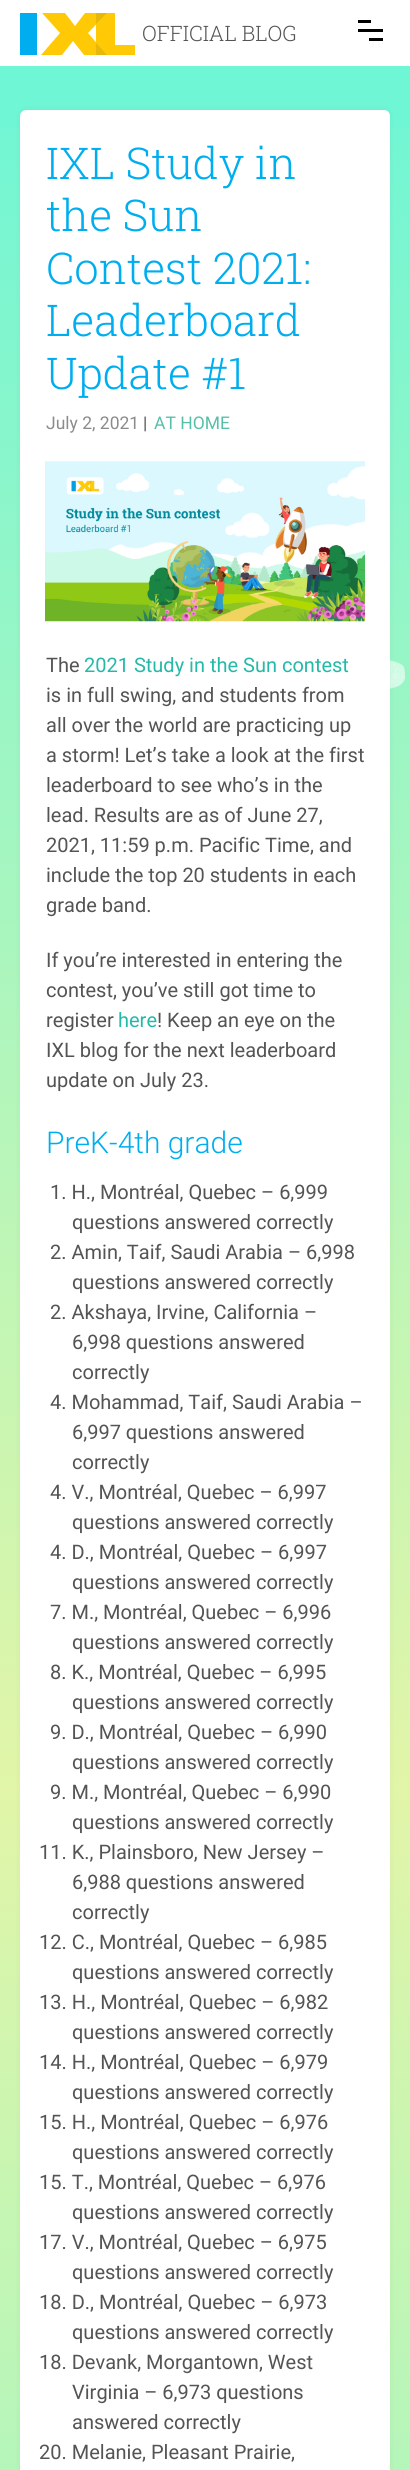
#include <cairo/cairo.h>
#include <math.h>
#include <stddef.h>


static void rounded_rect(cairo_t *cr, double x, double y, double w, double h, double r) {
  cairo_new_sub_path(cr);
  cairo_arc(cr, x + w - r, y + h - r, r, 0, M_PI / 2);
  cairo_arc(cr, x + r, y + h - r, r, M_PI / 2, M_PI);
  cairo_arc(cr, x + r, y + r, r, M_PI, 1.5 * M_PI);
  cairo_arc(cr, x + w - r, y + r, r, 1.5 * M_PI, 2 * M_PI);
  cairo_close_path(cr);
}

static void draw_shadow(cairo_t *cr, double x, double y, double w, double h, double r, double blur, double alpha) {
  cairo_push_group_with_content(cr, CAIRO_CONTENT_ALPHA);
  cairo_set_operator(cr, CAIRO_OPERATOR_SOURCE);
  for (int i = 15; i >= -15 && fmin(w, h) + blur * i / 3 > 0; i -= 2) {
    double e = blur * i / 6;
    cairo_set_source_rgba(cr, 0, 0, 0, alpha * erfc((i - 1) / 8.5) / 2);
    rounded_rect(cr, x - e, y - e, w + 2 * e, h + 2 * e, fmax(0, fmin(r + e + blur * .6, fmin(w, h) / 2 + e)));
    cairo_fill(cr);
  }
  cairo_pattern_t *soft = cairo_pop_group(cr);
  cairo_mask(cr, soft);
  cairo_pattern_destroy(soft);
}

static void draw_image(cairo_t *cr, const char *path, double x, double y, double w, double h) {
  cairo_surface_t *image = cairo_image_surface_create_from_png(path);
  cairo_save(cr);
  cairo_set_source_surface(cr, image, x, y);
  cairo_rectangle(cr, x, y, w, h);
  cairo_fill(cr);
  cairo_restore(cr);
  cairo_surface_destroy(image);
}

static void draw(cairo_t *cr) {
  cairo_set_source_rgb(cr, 111 / 255.0, 246 / 255.0, 213 / 255.0);
  cairo_paint(cr);
  cairo_set_source_rgb(cr, 1, 1, 1);
  cairo_rectangle(cr, 0, 0, 410, 66);
  cairo_fill(cr);
  cairo_set_source_rgb(cr, 1, 202 / 255.0, 5 / 255.0);
  cairo_set_fill_rule(cr, CAIRO_FILL_RULE_EVEN_ODD);
  cairo_new_path(cr);
  cairo_move_to(cr, 96, 55);
  cairo_line_to(cr, 135, 55);
  cairo_line_to(cr, 135, 45);
  cairo_line_to(cr, 115, 45);
  cairo_line_to(cr, 115, 13);
  cairo_line_to(cr, 96, 13);
  cairo_close_path(cr);
  cairo_fill(cr);
  cairo_new_path(cr);
  cairo_move_to(cr, 41, 55);
  cairo_line_to(cr, 62, 55);
  cairo_line_to(cr, 73, 41);
  cairo_line_to(cr, 84, 55);
  cairo_line_to(cr, 107, 55);
  cairo_line_to(cr, 88, 33);
  cairo_line_to(cr, 107, 13);
  cairo_line_to(cr, 85, 13);
  cairo_line_to(cr, 75, 26);
  cairo_line_to(cr, 65, 13);
  cairo_line_to(cr, 42, 13);
  cairo_line_to(cr, 60, 33);
  cairo_close_path(cr);
  cairo_fill(cr);
  cairo_set_source_rgb(cr, 231 / 255.0, 184 / 255.0, 9 / 255.0);
  cairo_new_path(cr);
  cairo_move_to(cr, 96, 55);
  cairo_line_to(cr, 107, 55);
  cairo_line_to(cr, 96, 43);
  cairo_close_path(cr);
  cairo_move_to(cr, 107, 13);
  cairo_line_to(cr, 96, 13);
  cairo_line_to(cr, 96, 24);
  cairo_close_path(cr);
  cairo_fill(cr);
  cairo_set_source_rgb(cr, 0, 174 / 255.0, 239 / 255.0);
  cairo_rectangle(cr, 20, 13, 17, 42);
  cairo_fill(cr);
  cairo_set_source_rgb(cr, 0, 0, 0);
  cairo_rectangle(cr, 358, 20, 13, 3);
  cairo_fill(cr);
  cairo_rectangle(cr, 358, 29, 25, 3);
  cairo_fill(cr);
  cairo_rectangle(cr, 369, 38, 14, 3);
  cairo_fill(cr);
  draw_image(cr, "images/1.png", 0, 128, 410, 2342);
  cairo_set_source_rgb(cr, 0, 0, 0);
  draw_shadow(cr, 20, 110, 370, 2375, 6, 3, 0.05);
  cairo_set_source_rgb(cr, 1, 1, 1);
  rounded_rect(cr, 20, 110, 370, 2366, 6);
  cairo_fill(cr);
  draw_image(cr, "images/2.png", 45, 461, 320, 161);
  cairo_select_font_face(cr, "Roboto Slab Light", CAIRO_FONT_SLANT_NORMAL, CAIRO_FONT_WEIGHT_NORMAL);
  cairo_set_font_size(cr, 21.25);
  cairo_set_source_rgb(cr, 84 / 255.0, 84 / 255.0, 84 / 255.0);
  cairo_move_to(cr, 142, 41);
  cairo_show_text(cr, "OFFICIAL BLOG");
  cairo_set_font_size(cr, 43.75);
  cairo_set_source_rgb(cr, 0, 174 / 255.0, 239 / 255.0);
  cairo_move_to(cr, 46, 179);
  cairo_show_text(cr, "IXL Study in");
  cairo_move_to(cr, 46, 231);
  cairo_show_text(cr, "the Sun");
  cairo_move_to(cr, 46, 284);
  cairo_show_text(cr, "Contest 2021:");
  cairo_move_to(cr, 46, 336);
  cairo_show_text(cr, "Leaderboard");
  cairo_move_to(cr, 46, 389);
  cairo_show_text(cr, "Update #1");
  cairo_select_font_face(cr, "Roboto", CAIRO_FONT_SLANT_NORMAL, CAIRO_FONT_WEIGHT_NORMAL);
  cairo_set_font_size(cr, 17.5);
  cairo_set_source_rgb(cr, 140 / 255.0, 139 / 255.0, 139 / 255.0);
  cairo_move_to(cr, 46, 429);
  cairo_show_text(cr, "July 2, 2021");
  cairo_set_source_rgb(cr, 84 / 255.0, 84 / 255.0, 84 / 255.0);
  cairo_move_to(cr, 143, 429);
  cairo_show_text(cr, "|");
  cairo_set_source_rgb(cr, 86 / 255.0, 191 / 255.0, 169 / 255.0);
  cairo_move_to(cr, 154, 429);
  cairo_show_text(cr, "AT HOME");
  cairo_set_font_size(cr, 20);
  cairo_set_source_rgb(cr, 84 / 255.0, 84 / 255.0, 84 / 255.0);
  cairo_move_to(cr, 46, 672);
  cairo_show_text(cr, "The");
  cairo_set_source_rgb(cr, 37 / 255.0, 185 / 255.0, 168 / 255.0);
  cairo_move_to(cr, 84, 672);
  cairo_show_text(cr, "2021 Study in the Sun contest");
  cairo_set_source_rgb(cr, 84 / 255.0, 84 / 255.0, 84 / 255.0);
  cairo_move_to(cr, 46, 702);
  cairo_show_text(cr, "is in full swing, and students from");
  cairo_move_to(cr, 46, 732);
  cairo_show_text(cr, "all over the world are practicing up");
  cairo_move_to(cr, 46, 762);
  cairo_show_text(cr, "a storm! Let’s take a look at the first");
  cairo_move_to(cr, 46, 792);
  cairo_show_text(cr, "leaderboard to see who’s in the");
  cairo_move_to(cr, 46, 822);
  cairo_show_text(cr, "lead. Results are as of June 27,");
  cairo_move_to(cr, 46, 852);
  cairo_show_text(cr, "2021, 11:59 p.m. Pacific Time, and");
  cairo_move_to(cr, 46, 882);
  cairo_show_text(cr, "include the top 20 students in each");
  cairo_move_to(cr, 46, 912);
  cairo_show_text(cr, "grade band.");
  cairo_move_to(cr, 46, 967);
  cairo_show_text(cr, "If you’re interested in entering the");
  cairo_move_to(cr, 46, 997);
  cairo_show_text(cr, "contest, you’ve still got time to");
  cairo_move_to(cr, 46, 1027);
  cairo_show_text(cr, "register");
  cairo_set_source_rgb(cr, 37 / 255.0, 185 / 255.0, 168 / 255.0);
  cairo_move_to(cr, 118, 1027);
  cairo_show_text(cr, "here");
  cairo_set_source_rgb(cr, 84 / 255.0, 84 / 255.0, 84 / 255.0);
  cairo_move_to(cr, 157, 1027);
  cairo_show_text(cr, "! Keep an eye on the");
  cairo_move_to(cr, 46, 1057);
  cairo_show_text(cr, "IXL blog for the next leaderboard");
  cairo_move_to(cr, 46, 1087);
  cairo_show_text(cr, "update on July 23.");
  cairo_select_font_face(cr, "Roboto Light", CAIRO_FONT_SLANT_NORMAL, CAIRO_FONT_WEIGHT_NORMAL);
  cairo_set_font_size(cr, 30);
  cairo_set_source_rgb(cr, 0, 174 / 255.0, 239 / 255.0);
  cairo_move_to(cr, 46, 1153);
  cairo_show_text(cr, "PreK-4th grade");
  cairo_select_font_face(cr, "Roboto", CAIRO_FONT_SLANT_NORMAL, CAIRO_FONT_WEIGHT_NORMAL);
  cairo_set_font_size(cr, 20);
  cairo_set_source_rgb(cr, 84 / 255.0, 84 / 255.0, 84 / 255.0);
  cairo_move_to(cr, 50, 1199);
  cairo_show_text(cr, "1. H., Montréal, Quebec – 6,999");
  cairo_move_to(cr, 72, 1229);
  cairo_show_text(cr, "questions answered correctly");
  cairo_move_to(cr, 50, 1259);
  cairo_show_text(cr, "2. Amin, Taif, Saudi Arabia – 6,998");
  cairo_move_to(cr, 72, 1289);
  cairo_show_text(cr, "questions answered correctly");
  cairo_move_to(cr, 50, 1319);
  cairo_show_text(cr, "2. Akshaya, Irvine, California –");
  cairo_move_to(cr, 72, 1349);
  cairo_show_text(cr, "6,998 questions answered");
  cairo_move_to(cr, 72, 1379);
  cairo_show_text(cr, "correctly");
  cairo_move_to(cr, 50, 1409);
  cairo_show_text(cr, "4. Mohammad, Taif, Saudi Arabia –");
  cairo_move_to(cr, 72, 1439);
  cairo_show_text(cr, "6,997 questions answered");
  cairo_move_to(cr, 72, 1469);
  cairo_show_text(cr, "correctly");
  cairo_move_to(cr, 50, 1499);
  cairo_show_text(cr, "4. V., Montréal, Quebec – 6,997");
  cairo_move_to(cr, 72, 1529);
  cairo_show_text(cr, "questions answered correctly");
  cairo_move_to(cr, 50, 1559);
  cairo_show_text(cr, "4. D., Montréal, Quebec – 6,997");
  cairo_move_to(cr, 72, 1589);
  cairo_show_text(cr, "questions answered correctly");
  cairo_move_to(cr, 50, 1619);
  cairo_show_text(cr, "7. M., Montréal, Quebec – 6,996");
  cairo_move_to(cr, 72, 1649);
  cairo_show_text(cr, "questions answered correctly");
  cairo_move_to(cr, 50, 1679);
  cairo_show_text(cr, "8. K., Montréal, Quebec – 6,995");
  cairo_move_to(cr, 72, 1709);
  cairo_show_text(cr, "questions answered correctly");
  cairo_move_to(cr, 50, 1739);
  cairo_show_text(cr, "9. D., Montréal, Quebec – 6,990");
  cairo_move_to(cr, 72, 1769);
  cairo_show_text(cr, "questions answered correctly");
  cairo_move_to(cr, 50, 1799);
  cairo_show_text(cr, "9. M., Montréal, Quebec – 6,990");
  cairo_move_to(cr, 72, 1829);
  cairo_show_text(cr, "questions answered correctly");
  cairo_move_to(cr, 39, 1859);
  cairo_show_text(cr, "11. K., Plainsboro, New Jersey –");
  cairo_move_to(cr, 72, 1889);
  cairo_show_text(cr, "6,988 questions answered");
  cairo_move_to(cr, 72, 1919);
  cairo_show_text(cr, "correctly");
  cairo_move_to(cr, 39, 1949);
  cairo_show_text(cr, "12. C., Montréal, Quebec – 6,985");
  cairo_move_to(cr, 72, 1979);
  cairo_show_text(cr, "questions answered correctly");
  cairo_move_to(cr, 39, 2009);
  cairo_show_text(cr, "13. H., Montréal, Quebec – 6,982");
  cairo_move_to(cr, 72, 2039);
  cairo_show_text(cr, "questions answered correctly");
  cairo_move_to(cr, 39, 2069);
  cairo_show_text(cr, "14. H., Montréal, Quebec – 6,979");
  cairo_move_to(cr, 72, 2099);
  cairo_show_text(cr, "questions answered correctly");
  cairo_move_to(cr, 39, 2129);
  cairo_show_text(cr, "15. H., Montréal, Quebec – 6,976");
  cairo_move_to(cr, 72, 2159);
  cairo_show_text(cr, "questions answered correctly");
  cairo_move_to(cr, 39, 2189);
  cairo_show_text(cr, "15. T., Montréal, Quebec – 6,976");
  cairo_move_to(cr, 72, 2219);
  cairo_show_text(cr, "questions answered correctly");
  cairo_move_to(cr, 39, 2249);
  cairo_show_text(cr, "17. V., Montréal, Quebec – 6,975");
  cairo_move_to(cr, 72, 2279);
  cairo_show_text(cr, "questions answered correctly");
  cairo_move_to(cr, 39, 2309);
  cairo_show_text(cr, "18. D., Montréal, Quebec – 6,973");
  cairo_move_to(cr, 72, 2339);
  cairo_show_text(cr, "questions answered correctly");
  cairo_move_to(cr, 39, 2369);
  cairo_show_text(cr, "18. Devank, Morgantown, West");
  cairo_move_to(cr, 72, 2399);
  cairo_show_text(cr, "Virginia – 6,973 questions");
  cairo_move_to(cr, 72, 2429);
  cairo_show_text(cr, "answered correctly");
  cairo_move_to(cr, 39, 2459);
  cairo_show_text(cr, "20. Melanie, Pleasant Prairie,");
}

int main(void) {
  cairo_surface_t *surface = cairo_image_surface_create(CAIRO_FORMAT_RGB24, 410, 2470);
  cairo_t *cr = cairo_create(surface);
  cairo_font_options_t *options = cairo_font_options_create();
  cairo_font_options_set_hint_metrics(options, CAIRO_HINT_METRICS_OFF);
  cairo_font_options_set_hint_style(options, CAIRO_HINT_STYLE_NONE);
  cairo_set_font_options(cr, options);
  cairo_set_miter_limit(cr, 4);
  draw(cr);
  cairo_surface_write_to_png(surface, "out.png");
  cairo_font_options_destroy(options);
  cairo_destroy(cr);
  cairo_surface_destroy(surface);
  return 0;
}
